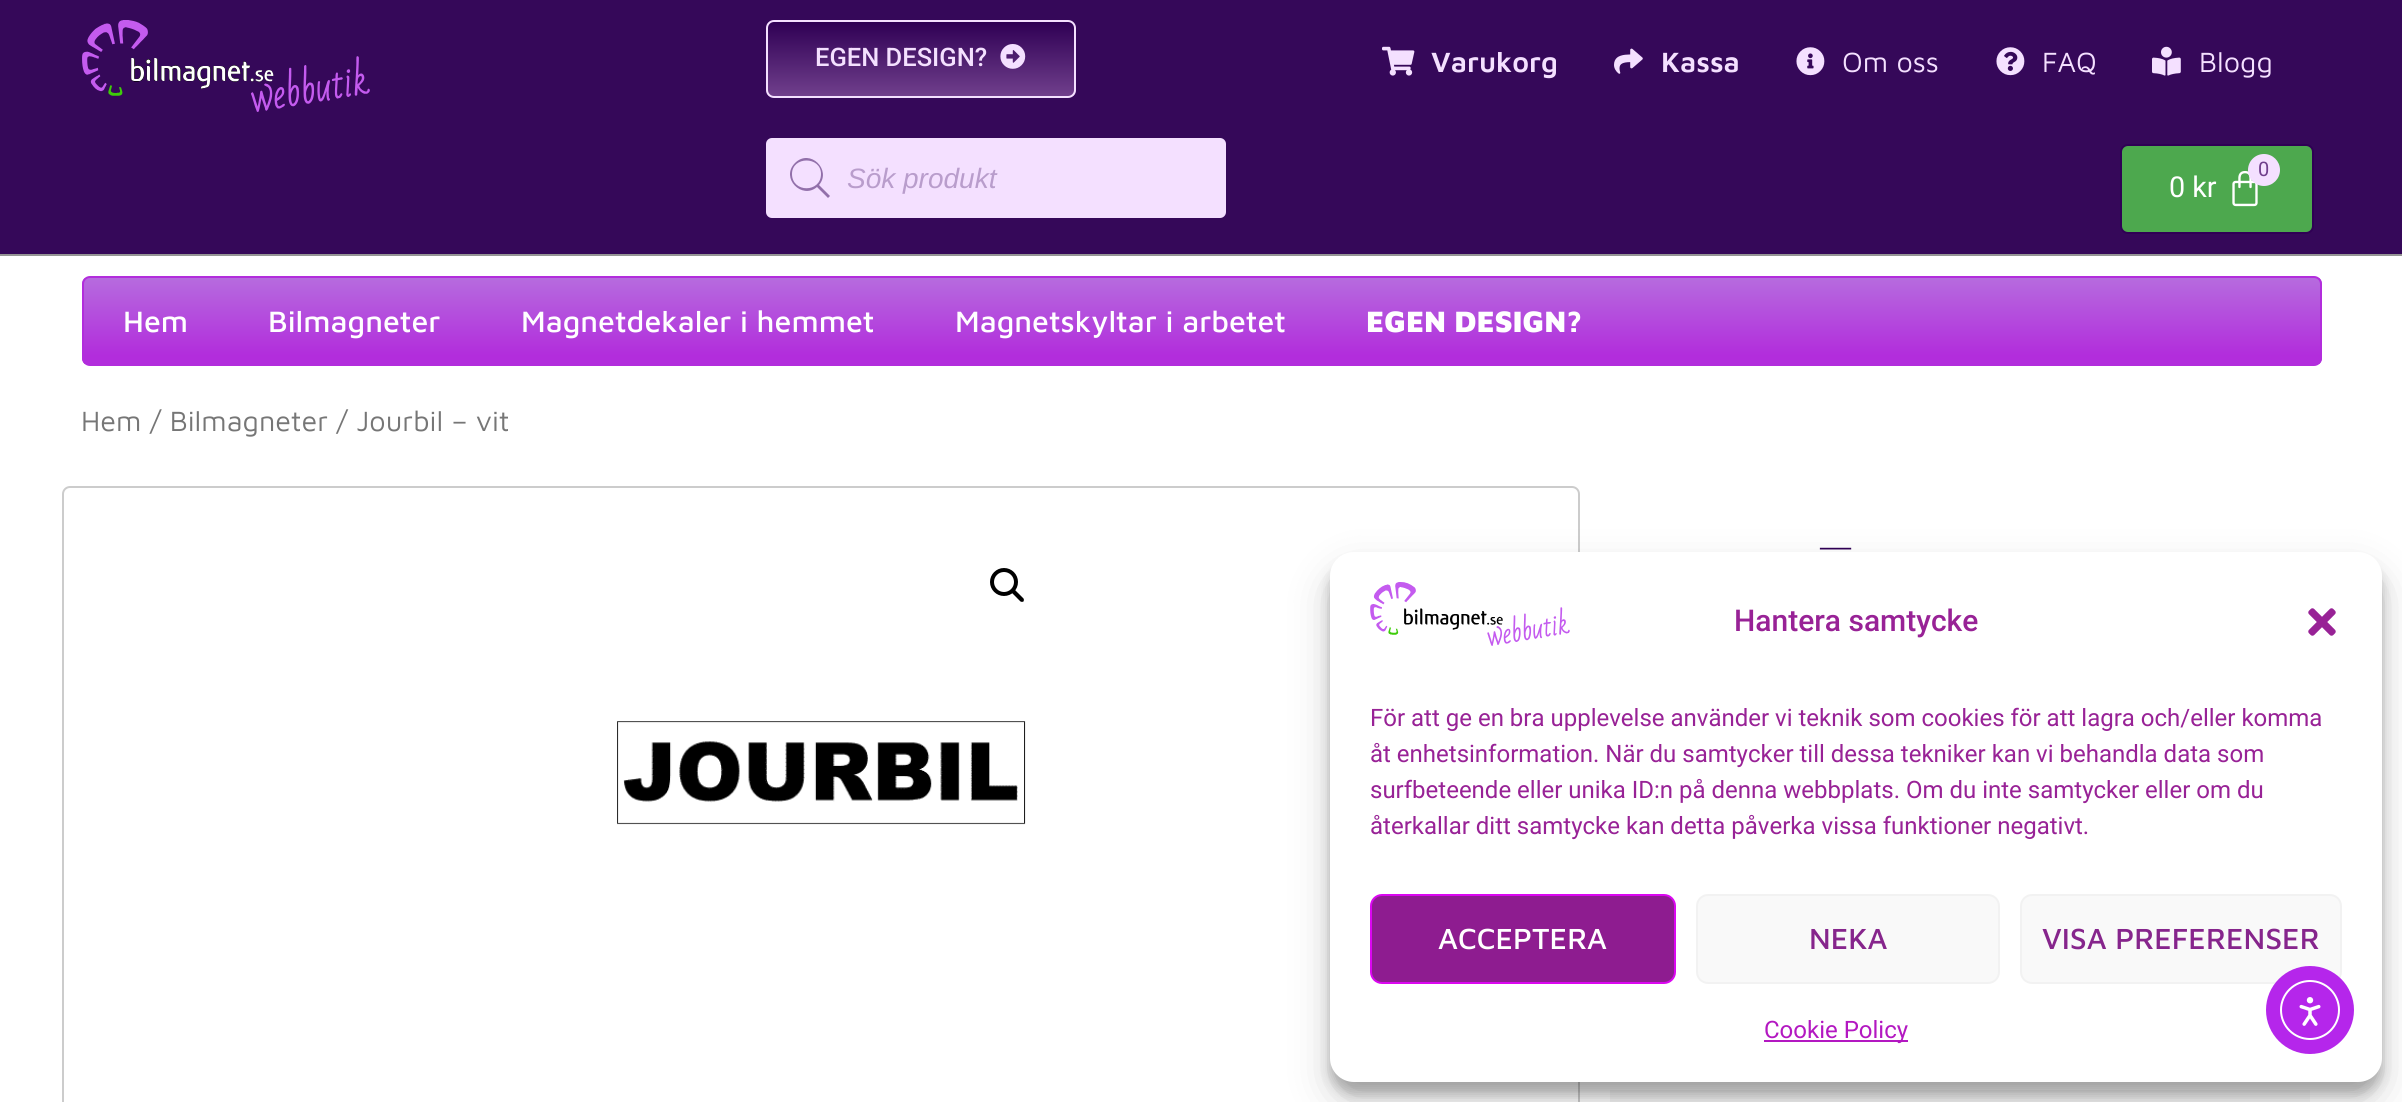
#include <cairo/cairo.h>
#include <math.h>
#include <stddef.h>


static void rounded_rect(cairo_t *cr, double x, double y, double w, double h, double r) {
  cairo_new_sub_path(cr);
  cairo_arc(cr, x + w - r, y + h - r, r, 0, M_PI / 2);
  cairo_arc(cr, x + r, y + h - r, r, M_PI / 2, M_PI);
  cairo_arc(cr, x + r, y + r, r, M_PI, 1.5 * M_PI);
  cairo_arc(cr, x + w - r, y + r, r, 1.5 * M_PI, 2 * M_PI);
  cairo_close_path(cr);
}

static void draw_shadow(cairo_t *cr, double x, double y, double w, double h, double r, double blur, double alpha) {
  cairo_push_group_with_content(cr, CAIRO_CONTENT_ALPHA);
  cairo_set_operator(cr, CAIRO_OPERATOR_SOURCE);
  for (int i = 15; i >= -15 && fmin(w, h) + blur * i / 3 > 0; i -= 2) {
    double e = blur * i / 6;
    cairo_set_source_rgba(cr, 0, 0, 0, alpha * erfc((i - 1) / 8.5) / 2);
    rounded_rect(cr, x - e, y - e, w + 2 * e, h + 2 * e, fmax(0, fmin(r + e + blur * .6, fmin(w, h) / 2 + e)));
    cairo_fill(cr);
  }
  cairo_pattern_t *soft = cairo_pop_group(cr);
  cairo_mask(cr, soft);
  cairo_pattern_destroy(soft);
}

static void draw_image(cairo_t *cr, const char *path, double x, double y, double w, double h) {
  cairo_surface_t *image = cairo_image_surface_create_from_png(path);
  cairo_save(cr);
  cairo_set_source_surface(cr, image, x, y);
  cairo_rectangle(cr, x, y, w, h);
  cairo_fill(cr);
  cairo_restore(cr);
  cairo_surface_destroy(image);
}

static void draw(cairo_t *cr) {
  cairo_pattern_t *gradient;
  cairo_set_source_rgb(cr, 1, 1, 1);
  cairo_paint(cr);
  cairo_set_source_rgb(cr, 53 / 255.0, 8 / 255.0, 89 / 255.0);
  cairo_rectangle(cr, 0, 0, 2402, 254);
  cairo_fill(cr);
  cairo_set_source_rgb(cr, 149 / 255.0, 149 / 255.0, 149 / 255.0);
  cairo_rectangle(cr, 0, 254, 2402, 2);
  cairo_fill(cr);
  draw_image(cr, "images/1.png", 82, 20, 288, 92);
  cairo_save(cr);
  rounded_rect(cr, 766, 20, 310, 78, 8);
  cairo_clip(cr);
  gradient = cairo_pattern_create_linear(921, 22, 921, 96);
  cairo_pattern_add_color_stop_rgba(gradient, 0, 47 / 255.0, 0, 84 / 255.0, 1);
  cairo_pattern_add_color_stop_rgba(gradient, 1, 112 / 255.0, 63 / 255.0, 140 / 255.0, 1);
  cairo_set_source(cr, gradient);
  cairo_pattern_destroy(gradient);
  cairo_rectangle(cr, 766, 22, 310, 74);
  cairo_fill(cr);
  cairo_restore(cr);
  rounded_rect(cr, 767, 21, 308, 76, 7);
  cairo_set_source_rgb(cr, 244 / 255.0, 224 / 255.0, 1);
  cairo_stroke(cr);
  draw_image(cr, "images/2.png", 1000, 44, 26, 25);
  rounded_rect(cr, 767, 139, 458, 78, 5);
  cairo_fill_preserve(cr);
  cairo_stroke(cr);
  cairo_set_source_rgb(cr, 146 / 255.0, 112 / 255.0, 170 / 255.0);
  cairo_new_path(cr);
  cairo_move_to(cr, 830, 196);
  cairo_line_to(cr, 819, 185);
  cairo_curve_to(cr, 832, 170, 810, 148, 795, 163);
  cairo_curve_to(cr, 780, 178, 802, 200, 817, 187);
  cairo_line_to(cr, 828, 198);
  cairo_close_path(cr);
  cairo_move_to(cr, 792, 174);
  cairo_curve_to(cr, 792, 156, 821, 156, 821, 174);
  cairo_curve_to(cr, 821, 193, 792, 193, 792, 174);
  cairo_close_path(cr);
  cairo_fill(cr);
  draw_image(cr, "images/3.png", 1382, 46, 33, 30);
  draw_image(cr, "images/4.png", 1614, 48, 29, 26);
  draw_image(cr, "images/5.png", 1796, 47, 29, 29);
  draw_image(cr, "images/6.png", 1996, 47, 29, 29);
  draw_image(cr, "images/7.png", 2152, 46, 29, 30);
  cairo_set_source_rgb(cr, 77 / 255.0, 168 / 255.0, 78 / 255.0);
  rounded_rect(cr, 2121, 145, 192, 88, 7);
  cairo_fill_preserve(cr);
  cairo_set_source_rgb(cr, 47 / 255.0, 0, 84 / 255.0);
  cairo_stroke(cr);
  draw_image(cr, "images/8.png", 2232, 171, 26, 36);
  cairo_set_source_rgb(cr, 244 / 255.0, 224 / 255.0, 1);
  cairo_arc(cr, 2264, 170, 16, 0, 2 * M_PI);
  cairo_fill(cr);
  cairo_save(cr);
  rounded_rect(cr, 82, 276, 2240, 90, 8);
  cairo_clip(cr);
  gradient = cairo_pattern_create_linear(1202, 278, 1202, 364);
  cairo_pattern_add_color_stop_rgba(gradient, 0, 182 / 255.0, 107 / 255.0, 222 / 255.0, 1);
  cairo_pattern_add_color_stop_rgba(gradient, 0.9, 178 / 255.0, 45 / 255.0, 220 / 255.0, 1);
  cairo_set_source(cr, gradient);
  cairo_pattern_destroy(gradient);
  cairo_rectangle(cr, 82, 278, 2240, 86);
  cairo_fill(cr);
  cairo_restore(cr);
  rounded_rect(cr, 83, 277, 2238, 88, 7);
  cairo_set_source_rgb(cr, 178 / 255.0, 45 / 255.0, 220 / 255.0);
  cairo_stroke(cr);
  rounded_rect(cr, 63, 487, 1516, 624, 7);
  cairo_set_source_rgb(cr, 204 / 255.0, 204 / 255.0, 204 / 255.0);
  cairo_stroke(cr);
  cairo_arc(cr, 1004, 582, 12, 0, 2 * M_PI);
  cairo_set_source_rgb(cr, 0, 0, 0);
  cairo_set_line_width(cr, 4);
  cairo_stroke(cr);
  cairo_new_path(cr);
  cairo_move_to(cr, 1012, 590);
  cairo_curve_to(cr, 1013, 589, 1014, 589, 1015, 590);
  cairo_line_to(cr, 1023.5, 598.5);
  cairo_curve_to(cr, 1024, 599, 1024, 600.5, 1023.5, 601.5);
  cairo_curve_to(cr, 1022.5, 602, 1021.5, 602, 1020.5, 601.5);
  cairo_line_to(cr, 1012, 593);
  cairo_curve_to(cr, 1011.5, 592, 1011.5, 590.5, 1012, 590);
  cairo_close_path(cr);
  cairo_fill(cr);
  draw_image(cr, "images/9.png", 617, 721, 409, 104);
  cairo_set_source_rgb(cr, 246 / 255.0, 246 / 255.0, 246 / 255.0);
  cairo_rectangle(cr, 1610, 1090, 700, 12);
  cairo_fill(cr);
  cairo_set_source_rgb(cr, 0, 0, 0);
  draw_shadow(cr, 1330, 564, 1052, 530, 24, 6, 0.23);
  draw_shadow(cr, 1330, 572, 1052, 530, 24, 20, 0.19);
  cairo_set_source_rgb(cr, 1, 1, 1);
  rounded_rect(cr, 1330, 552, 1052, 530, 24);
  cairo_fill(cr);
  draw_image(cr, "images/10.png", 1370, 582, 200, 64);
  draw_image(cr, "images/11.png", 2308, 608, 28, 28);
  cairo_set_source_rgb(cr, 142 / 255.0, 28 / 255.0, 144 / 255.0);
  rounded_rect(cr, 1371, 895, 304, 88, 11);
  cairo_fill_preserve(cr);
  cairo_set_source_rgb(cr, 219 / 255.0, 6 / 255.0, 241 / 255.0);
  cairo_set_line_width(cr, 2);
  cairo_stroke(cr);
  cairo_set_source_rgb(cr, 249 / 255.0, 249 / 255.0, 249 / 255.0);
  rounded_rect(cr, 1697, 895, 302, 88, 11);
  cairo_fill_preserve(cr);
  cairo_set_source_rgb(cr, 242 / 255.0, 242 / 255.0, 242 / 255.0);
  cairo_stroke(cr);
  cairo_set_source_rgb(cr, 249 / 255.0, 249 / 255.0, 249 / 255.0);
  rounded_rect(cr, 2021, 895, 320, 88, 11);
  cairo_fill_preserve(cr);
  cairo_set_source_rgb(cr, 242 / 255.0, 242 / 255.0, 242 / 255.0);
  cairo_stroke(cr);
  cairo_set_source_rgb(cr, 179 / 255.0, 24 / 255.0, 193 / 255.0);
  cairo_rectangle(cr, 1764, 1040, 144, 2);
  cairo_fill(cr);
  cairo_set_source_rgb(cr, 181 / 255.0, 38 / 255.0, 235 / 255.0);
  cairo_arc(cr, 2310, 1010, 44, 0, 2 * M_PI);
  cairo_fill(cr);
  cairo_arc(cr, 2310, 1010, 29, 0, 2 * M_PI);
  cairo_set_source_rgb(cr, 1, 1, 1);
  cairo_stroke(cr);
  draw_image(cr, "images/12.png", 2299, 997, 22, 29);
  cairo_select_font_face(cr, "Roboto Medium", CAIRO_FONT_SLANT_NORMAL, CAIRO_FONT_WEIGHT_NORMAL);
  cairo_set_font_size(cr, 25.5);
  cairo_set_source_rgb(cr, 244 / 255.0, 224 / 255.0, 1);
  cairo_move_to(cr, 815, 66);
  cairo_show_text(cr, "EGEN DESIGN?");
  cairo_select_font_face(cr, "Liberation Sans", CAIRO_FONT_SLANT_ITALIC, CAIRO_FONT_WEIGHT_NORMAL);
  cairo_set_font_size(cr, 28);
  cairo_set_source_rgb(cr, 185 / 255.0, 157 / 255.0, 204 / 255.0);
  cairo_move_to(cr, 847, 188);
  cairo_show_text(cr, "Sök produkt");
  cairo_select_font_face(cr, "Maven Pro SemiBold", CAIRO_FONT_SLANT_NORMAL, CAIRO_FONT_WEIGHT_NORMAL);
  cairo_set_font_size(cr, 28.75);
  cairo_set_source_rgb(cr, 244 / 255.0, 224 / 255.0, 1);
  cairo_move_to(cr, 1431, 72);
  cairo_show_text(cr, "Varukorg");
  cairo_move_to(cr, 1661, 72);
  cairo_show_text(cr, "Kassa");
  cairo_select_font_face(cr, "Maven Pro", CAIRO_FONT_SLANT_NORMAL, CAIRO_FONT_WEIGHT_NORMAL);
  cairo_move_to(cr, 1842, 72);
  cairo_show_text(cr, "Om oss");
  cairo_move_to(cr, 2042, 72);
  cairo_show_text(cr, "FAQ");
  cairo_move_to(cr, 2199, 72);
  cairo_show_text(cr, "Blogg");
  cairo_select_font_face(cr, "Roboto", CAIRO_FONT_SLANT_NORMAL, CAIRO_FONT_WEIGHT_NORMAL);
  cairo_set_font_size(cr, 20);
  cairo_set_source_rgb(cr, 112 / 255.0, 63 / 255.0, 140 / 255.0);
  cairo_move_to(cr, 2258, 176);
  cairo_show_text(cr, "0");
  cairo_set_font_size(cr, 28.75);
  cairo_set_source_rgb(cr, 1, 1, 1);
  cairo_move_to(cr, 2169, 197);
  cairo_show_text(cr, "0 kr");
  cairo_select_font_face(cr, "Maven Pro Medium", CAIRO_FONT_SLANT_NORMAL, CAIRO_FONT_WEIGHT_NORMAL);
  cairo_set_font_size(cr, 30.4);
  cairo_move_to(cr, 123, 332);
  cairo_show_text(cr, "Hem");
  cairo_move_to(cr, 268, 332);
  cairo_show_text(cr, "Bilmagneter");
  cairo_move_to(cr, 521, 332);
  cairo_show_text(cr, "Magnetdekaler i hemmet");
  cairo_move_to(cr, 955, 332);
  cairo_show_text(cr, "Magnetskyltar i arbetet");
  cairo_select_font_face(cr, "Maven Pro Black", CAIRO_FONT_SLANT_NORMAL, CAIRO_FONT_WEIGHT_NORMAL);
  cairo_move_to(cr, 1366, 332);
  cairo_show_text(cr, "EGEN DESIGN?");
  cairo_select_font_face(cr, "Maven Pro", CAIRO_FONT_SLANT_NORMAL, CAIRO_FONT_WEIGHT_NORMAL);
  cairo_set_font_size(cr, 28.75);
  cairo_set_source_rgb(cr, 118 / 255.0, 118 / 255.0, 118 / 255.0);
  cairo_move_to(cr, 81, 431);
  cairo_show_text(cr, "Hem / Bilmagneter / Jourbil – vit");
  cairo_select_font_face(cr, "Roboto Thin", CAIRO_FONT_SLANT_NORMAL, CAIRO_FONT_WEIGHT_NORMAL);
  cairo_set_font_size(cr, 64);
  cairo_set_source_rgb(cr, 47 / 255.0, 0, 84 / 255.0);
  cairo_move_to(cr, 1815, 572);
  cairo_show_text(cr, "–");
  cairo_select_font_face(cr, "Roboto Medium", CAIRO_FONT_SLANT_NORMAL, CAIRO_FONT_WEIGHT_NORMAL);
  cairo_set_font_size(cr, 30);
  cairo_set_source_rgb(cr, 152 / 255.0, 34 / 255.0, 150 / 255.0);
  cairo_move_to(cr, 1734, 631);
  cairo_show_text(cr, "Hantera samtycke");
  cairo_select_font_face(cr, "Roboto", CAIRO_FONT_SLANT_NORMAL, CAIRO_FONT_WEIGHT_NORMAL);
  cairo_set_font_size(cr, 24);
  cairo_move_to(cr, 1370, 726);
  cairo_show_text(cr, "För att ge en bra upplevelse använder vi teknik som cookies för att lagra och/eller komma");
  cairo_move_to(cr, 1370, 762);
  cairo_show_text(cr, "åt enhetsinformation. När du samtycker till dessa tekniker kan vi behandla data som");
  cairo_move_to(cr, 1370, 798);
  cairo_show_text(cr, "surfbeteende eller unika ID:n på denna webbplats. Om du inte samtycker eller om du");
  cairo_move_to(cr, 1370, 834);
  cairo_show_text(cr, "återkallar ditt samtycke kan detta påverka vissa funktioner negativt.");
  cairo_select_font_face(cr, "Maven Pro Medium", CAIRO_FONT_SLANT_NORMAL, CAIRO_FONT_WEIGHT_NORMAL);
  cairo_set_font_size(cr, 30);
  cairo_set_source_rgb(cr, 1, 1, 1);
  cairo_move_to(cr, 1438, 949);
  cairo_show_text(cr, "ACCEPTERA");
  cairo_set_source_rgb(cr, 134 / 255.0, 37 / 255.0, 140 / 255.0);
  cairo_move_to(cr, 1809, 949);
  cairo_show_text(cr, "NEKA");
  cairo_move_to(cr, 2042, 949);
  cairo_show_text(cr, "VISA PREFERENSER");
  cairo_select_font_face(cr, "Roboto", CAIRO_FONT_SLANT_NORMAL, CAIRO_FONT_WEIGHT_NORMAL);
  cairo_set_font_size(cr, 24);
  cairo_set_source_rgb(cr, 179 / 255.0, 24 / 255.0, 193 / 255.0);
  cairo_move_to(cr, 1764, 1038);
  cairo_show_text(cr, "Cookie Policy");
}

int main(void) {
  cairo_surface_t *surface = cairo_image_surface_create(CAIRO_FORMAT_RGB24, 2402, 1102);
  cairo_t *cr = cairo_create(surface);
  cairo_font_options_t *options = cairo_font_options_create();
  cairo_font_options_set_hint_metrics(options, CAIRO_HINT_METRICS_OFF);
  cairo_font_options_set_hint_style(options, CAIRO_HINT_STYLE_NONE);
  cairo_set_font_options(cr, options);
  cairo_set_miter_limit(cr, 4);
  draw(cr);
  cairo_surface_write_to_png(surface, "out.png");
  cairo_font_options_destroy(options);
  cairo_destroy(cr);
  cairo_surface_destroy(surface);
  return 0;
}
